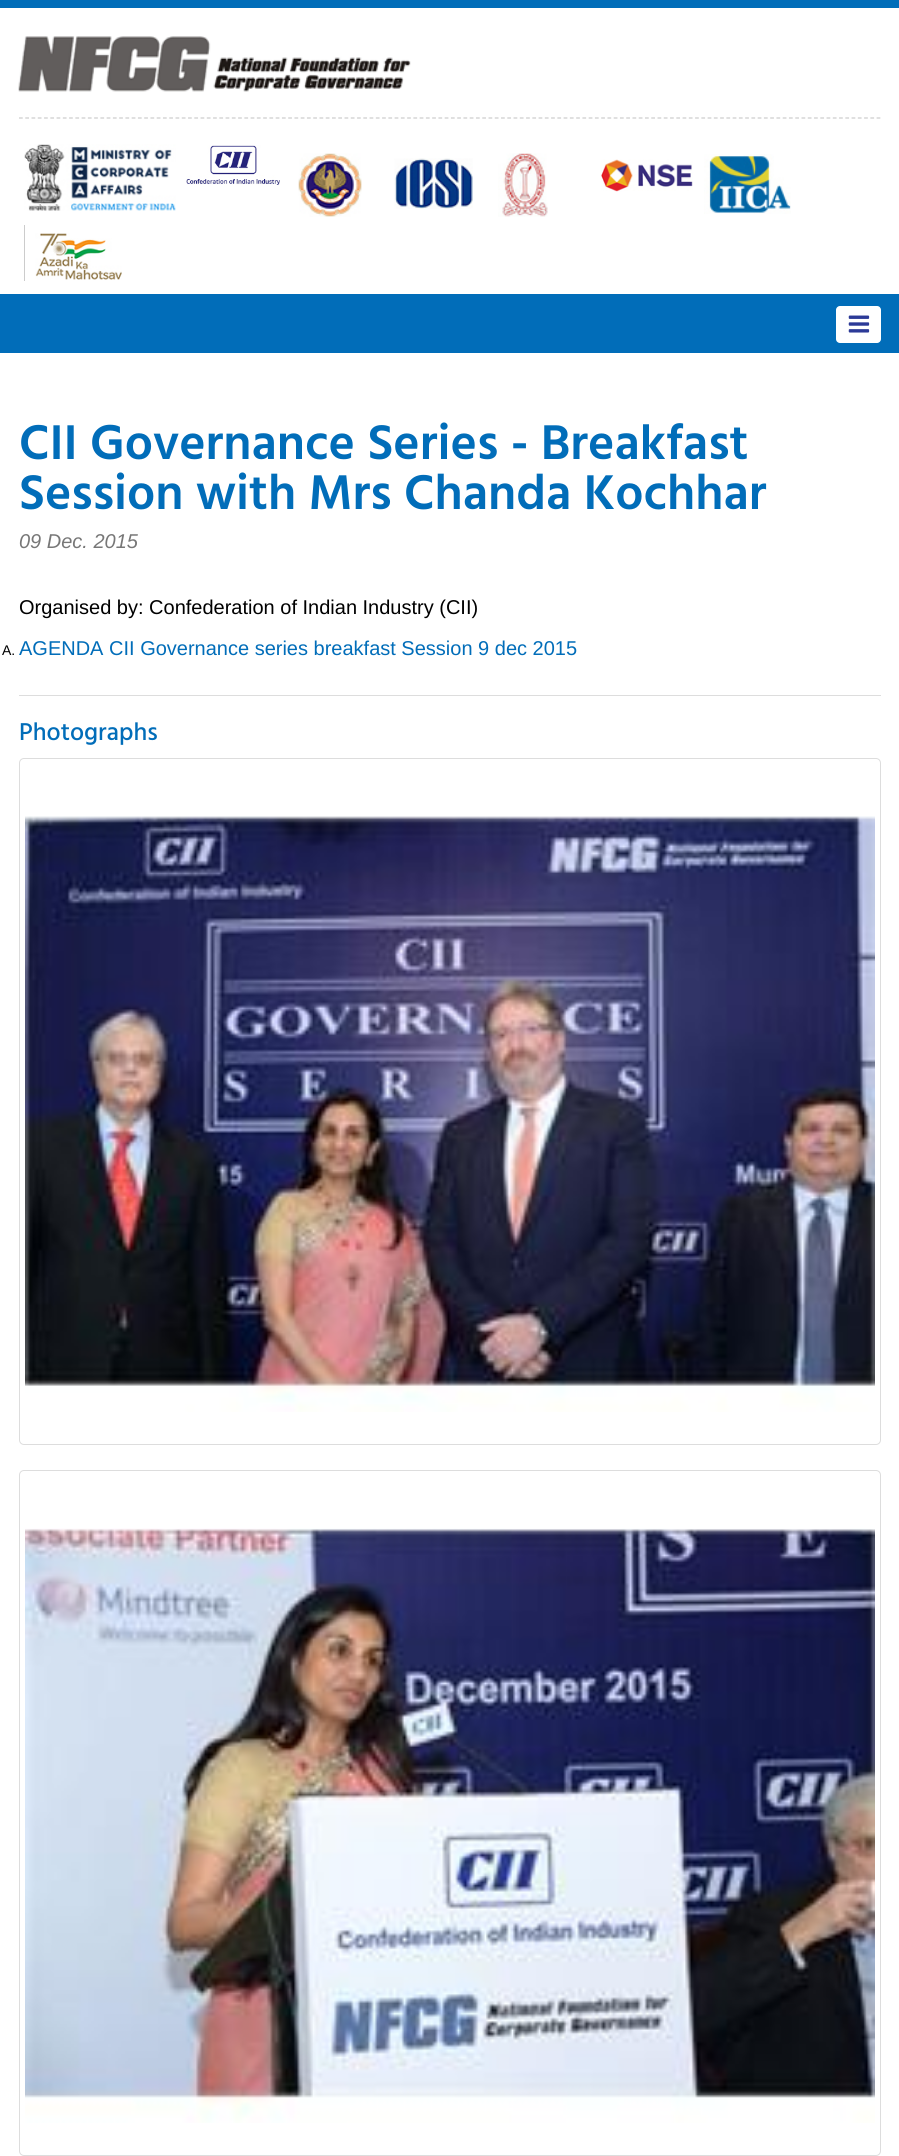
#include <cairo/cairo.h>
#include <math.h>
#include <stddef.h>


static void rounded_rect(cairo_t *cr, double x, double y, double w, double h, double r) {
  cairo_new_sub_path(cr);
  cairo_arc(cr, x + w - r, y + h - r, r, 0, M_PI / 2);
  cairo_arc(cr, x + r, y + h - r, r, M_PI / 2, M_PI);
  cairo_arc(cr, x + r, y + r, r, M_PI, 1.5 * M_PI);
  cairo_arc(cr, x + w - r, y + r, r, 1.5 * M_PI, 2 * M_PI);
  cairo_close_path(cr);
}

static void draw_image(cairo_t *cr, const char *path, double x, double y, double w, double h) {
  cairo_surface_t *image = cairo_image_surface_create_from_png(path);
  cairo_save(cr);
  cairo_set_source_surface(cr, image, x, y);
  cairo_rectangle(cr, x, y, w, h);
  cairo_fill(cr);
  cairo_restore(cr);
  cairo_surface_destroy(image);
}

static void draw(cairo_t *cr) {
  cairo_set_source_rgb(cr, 1, 1, 1);
  cairo_paint(cr);
  cairo_set_source_rgb(cr, 1 / 255.0, 109 / 255.0, 185 / 255.0);
  cairo_rectangle(cr, 0, 0, 899, 8);
  cairo_fill(cr);
  draw_image(cr, "images/1.png", 18, 36, 393, 56);
  cairo_new_path(cr);
  cairo_move_to(cr, 19, 118);
  cairo_line_to(cr, 881, 118);
  cairo_set_source_rgb(cr, 204 / 255.0, 204 / 255.0, 204 / 255.0);
  cairo_set_line_width(cr, 1.2);
  cairo_set_dash(cr, (double[]){3.75, 2.51}, 2, 0);
  cairo_stroke(cr);
  draw_image(cr, "images/2.png", 24, 144, 152, 67);
  draw_image(cr, "images/3.png", 186, 145, 94, 40);
  draw_image(cr, "images/4.png", 298, 153, 64, 64);
  draw_image(cr, "images/5.png", 394, 158, 79, 51);
  draw_image(cr, "images/6.png", 498, 153, 50, 64);
  draw_image(cr, "images/7.png", 601, 159, 92, 33);
  draw_image(cr, "images/8.png", 704, 154, 87, 60);
  cairo_rectangle(cr, 24, 225, 1, 56);
  cairo_fill(cr);
  draw_image(cr, "images/9.png", 35, 233, 87, 47);
  cairo_set_source_rgb(cr, 1 / 255.0, 109 / 255.0, 185 / 255.0);
  cairo_rectangle(cr, 0, 294, 899, 59);
  cairo_fill(cr);
  cairo_set_source_rgb(cr, 1, 1, 1);
  rounded_rect(cr, 836, 306, 45, 37, 4);
  cairo_fill(cr);
  draw_image(cr, "images/10.png", 848, 315, 22, 18);
  cairo_set_source_rgb(cr, 221 / 255.0, 221 / 255.0, 221 / 255.0);
  cairo_rectangle(cr, 19, 695, 862, 1);
  cairo_fill(cr);
  rounded_rect(cr, 19.5, 758.5, 861, 686, 4.5);
  cairo_set_line_width(cr, 1);
  cairo_set_dash(cr, NULL, 0, 0);
  cairo_stroke(cr);
  draw_image(cr, "images/11.png", 25, 816, 850, 596);
  rounded_rect(cr, 19.5, 1470.5, 861, 685, 4.5);
  cairo_stroke(cr);
  draw_image(cr, "images/12.png", 25, 1528, 850, 595);
  cairo_select_font_face(cr, "Hind Vadodara SemiBold", CAIRO_FONT_SLANT_NORMAL, CAIRO_FONT_WEIGHT_NORMAL);
  cairo_set_font_size(cr, 50);
  cairo_set_source_rgb(cr, 1 / 255.0, 109 / 255.0, 185 / 255.0);
  cairo_move_to(cr, 19, 459);
  cairo_show_text(cr, "CII Governance Series - Breakfast");
  cairo_move_to(cr, 19, 509);
  cairo_show_text(cr, "Session with Mrs Chanda Kochhar");
  cairo_select_font_face(cr, "Liberation Sans", CAIRO_FONT_SLANT_ITALIC, CAIRO_FONT_WEIGHT_NORMAL);
  cairo_set_font_size(cr, 20);
  cairo_set_source_rgb(cr, 119 / 255.0, 119 / 255.0, 119 / 255.0);
  cairo_move_to(cr, 19, 548);
  cairo_show_text(cr, "09 Dec. 2015");
  cairo_select_font_face(cr, "Liberation Sans", CAIRO_FONT_SLANT_NORMAL, CAIRO_FONT_WEIGHT_NORMAL);
  cairo_set_source_rgb(cr, 0, 0, 0);
  cairo_move_to(cr, 19, 614);
  cairo_show_text(cr, "Organised by: Confederation of Indian Industry (CII)");
  cairo_set_font_size(cr, 14);
  cairo_move_to(cr, 2, 655);
  cairo_show_text(cr, "A.");
  cairo_set_font_size(cr, 20);
  cairo_set_source_rgb(cr, 1 / 255.0, 109 / 255.0, 185 / 255.0);
  cairo_move_to(cr, 19, 655);
  cairo_show_text(cr, "AGENDA CII Governance series breakfast Session 9 dec 2015");
  cairo_select_font_face(cr, "Hind Vadodara Medium", CAIRO_FONT_SLANT_NORMAL, CAIRO_FONT_WEIGHT_NORMAL);
  cairo_set_font_size(cr, 25);
  cairo_move_to(cr, 19, 740);
  cairo_show_text(cr, "Photographs");
}

int main(void) {
  cairo_surface_t *surface = cairo_image_surface_create(CAIRO_FORMAT_RGB24, 899, 2156);
  cairo_t *cr = cairo_create(surface);
  cairo_font_options_t *options = cairo_font_options_create();
  cairo_font_options_set_hint_metrics(options, CAIRO_HINT_METRICS_OFF);
  cairo_font_options_set_hint_style(options, CAIRO_HINT_STYLE_NONE);
  cairo_set_font_options(cr, options);
  cairo_set_miter_limit(cr, 4);
  draw(cr);
  cairo_surface_write_to_png(surface, "out.png");
  cairo_font_options_destroy(options);
  cairo_destroy(cr);
  cairo_surface_destroy(surface);
  return 0;
}
